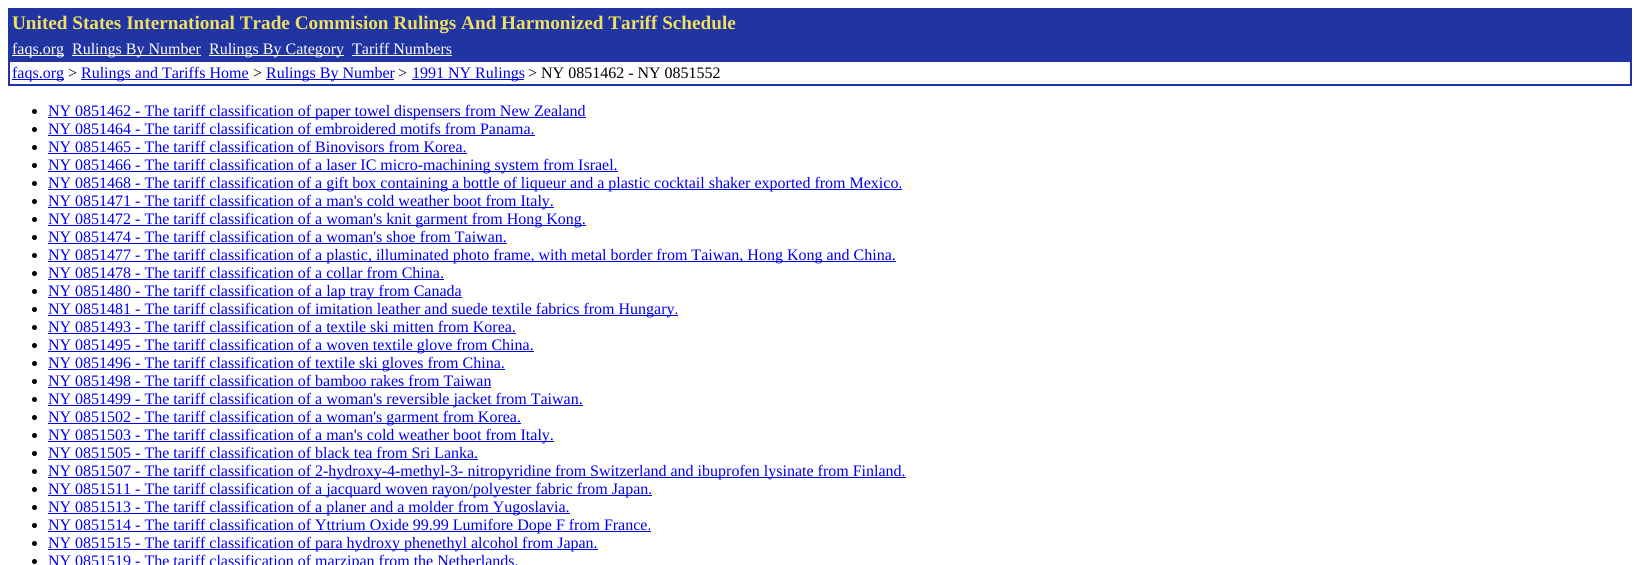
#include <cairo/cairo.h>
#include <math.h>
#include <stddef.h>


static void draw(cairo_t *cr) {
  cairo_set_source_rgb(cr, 1, 1, 1);
  cairo_paint(cr);
  cairo_set_source_rgb(cr, 33 / 255.0, 52 / 255.0, 163 / 255.0);
  cairo_rectangle(cr, 8, 8, 1624, 78);
  cairo_fill(cr);
  cairo_set_source_rgb(cr, 1, 1, 1);
  cairo_rectangle(cr, 12, 55, 52, 1);
  cairo_fill(cr);
  cairo_rectangle(cr, 72, 55, 129, 1);
  cairo_fill(cr);
  cairo_rectangle(cr, 209, 55, 135, 1);
  cairo_fill(cr);
  cairo_rectangle(cr, 352, 55, 100, 1);
  cairo_fill(cr);
  cairo_rectangle(cr, 10, 62, 1620, 22);
  cairo_fill(cr);
  cairo_set_source_rgb(cr, 0, 0, 238 / 255.0);
  cairo_rectangle(cr, 12, 79, 52, 1);
  cairo_fill(cr);
  cairo_rectangle(cr, 81, 79, 168, 1);
  cairo_fill(cr);
  cairo_rectangle(cr, 266, 79, 128, 1);
  cairo_fill(cr);
  cairo_rectangle(cr, 412, 79, 112, 1);
  cairo_fill(cr);
  cairo_set_source_rgb(cr, 0, 0, 0);
  cairo_arc(cr, 34.5, 111.5, 2.5, 0, 2 * M_PI);
  cairo_fill(cr);
  cairo_set_source_rgb(cr, 0, 0, 238 / 255.0);
  cairo_rectangle(cr, 48, 117, 538, 1);
  cairo_fill(cr);
  cairo_set_source_rgb(cr, 0, 0, 0);
  cairo_arc(cr, 34.5, 129.5, 2.5, 0, 2 * M_PI);
  cairo_fill(cr);
  cairo_set_source_rgb(cr, 0, 0, 238 / 255.0);
  cairo_rectangle(cr, 48, 135, 487, 1);
  cairo_fill(cr);
  cairo_set_source_rgb(cr, 0, 0, 0);
  cairo_arc(cr, 34.5, 147.5, 2.5, 0, 2 * M_PI);
  cairo_fill(cr);
  cairo_set_source_rgb(cr, 0, 0, 238 / 255.0);
  cairo_rectangle(cr, 48, 153, 419, 1);
  cairo_fill(cr);
  cairo_set_source_rgb(cr, 0, 0, 0);
  cairo_arc(cr, 34.5, 165.5, 2.5, 0, 2 * M_PI);
  cairo_fill(cr);
  cairo_set_source_rgb(cr, 0, 0, 238 / 255.0);
  cairo_rectangle(cr, 48, 171, 570, 1);
  cairo_fill(cr);
  cairo_set_source_rgb(cr, 0, 0, 0);
  cairo_arc(cr, 34.5, 183.5, 2.5, 0, 2 * M_PI);
  cairo_fill(cr);
  cairo_set_source_rgb(cr, 0, 0, 238 / 255.0);
  cairo_rectangle(cr, 48, 189, 854, 1);
  cairo_fill(cr);
  cairo_set_source_rgb(cr, 0, 0, 0);
  cairo_arc(cr, 34.5, 201.5, 2.5, 0, 2 * M_PI);
  cairo_fill(cr);
  cairo_set_source_rgb(cr, 0, 0, 238 / 255.0);
  cairo_rectangle(cr, 48, 207, 506, 1);
  cairo_fill(cr);
  cairo_set_source_rgb(cr, 0, 0, 0);
  cairo_arc(cr, 34.5, 219.5, 2.5, 0, 2 * M_PI);
  cairo_fill(cr);
  cairo_set_source_rgb(cr, 0, 0, 238 / 255.0);
  cairo_rectangle(cr, 48, 225, 538, 1);
  cairo_fill(cr);
  cairo_set_source_rgb(cr, 0, 0, 0);
  cairo_arc(cr, 34.5, 237.5, 2.5, 0, 2 * M_PI);
  cairo_fill(cr);
  cairo_set_source_rgb(cr, 0, 0, 238 / 255.0);
  cairo_rectangle(cr, 48, 243, 459, 1);
  cairo_fill(cr);
  cairo_set_source_rgb(cr, 0, 0, 0);
  cairo_arc(cr, 34.5, 255.5, 2.5, 0, 2 * M_PI);
  cairo_fill(cr);
  cairo_set_source_rgb(cr, 0, 0, 238 / 255.0);
  cairo_rectangle(cr, 48, 261, 848, 1);
  cairo_fill(cr);
  cairo_set_source_rgb(cr, 0, 0, 0);
  cairo_arc(cr, 34.5, 273.5, 2.5, 0, 2 * M_PI);
  cairo_fill(cr);
  cairo_set_source_rgb(cr, 0, 0, 238 / 255.0);
  cairo_rectangle(cr, 48, 279, 396, 1);
  cairo_fill(cr);
  cairo_set_source_rgb(cr, 0, 0, 0);
  cairo_arc(cr, 34.5, 291.5, 2.5, 0, 2 * M_PI);
  cairo_fill(cr);
  cairo_set_source_rgb(cr, 0, 0, 238 / 255.0);
  cairo_rectangle(cr, 48, 297, 414, 1);
  cairo_fill(cr);
  cairo_set_source_rgb(cr, 0, 0, 0);
  cairo_arc(cr, 34.5, 309.5, 2.5, 0, 2 * M_PI);
  cairo_fill(cr);
  cairo_set_source_rgb(cr, 0, 0, 238 / 255.0);
  cairo_rectangle(cr, 48, 315, 630, 1);
  cairo_fill(cr);
  cairo_set_source_rgb(cr, 0, 0, 0);
  cairo_arc(cr, 34.5, 327.5, 2.5, 0, 2 * M_PI);
  cairo_fill(cr);
  cairo_set_source_rgb(cr, 0, 0, 238 / 255.0);
  cairo_rectangle(cr, 48, 333, 468, 1);
  cairo_fill(cr);
  cairo_set_source_rgb(cr, 0, 0, 0);
  cairo_arc(cr, 34.5, 345.5, 2.5, 0, 2 * M_PI);
  cairo_fill(cr);
  cairo_set_source_rgb(cr, 0, 0, 238 / 255.0);
  cairo_rectangle(cr, 48, 351, 486, 1);
  cairo_fill(cr);
  cairo_set_source_rgb(cr, 0, 0, 0);
  cairo_arc(cr, 34.5, 363.5, 2.5, 0, 2 * M_PI);
  cairo_fill(cr);
  cairo_set_source_rgb(cr, 0, 0, 238 / 255.0);
  cairo_rectangle(cr, 48, 369, 457, 1);
  cairo_fill(cr);
  cairo_set_source_rgb(cr, 0, 0, 0);
  cairo_arc(cr, 34.5, 381.5, 2.5, 0, 2 * M_PI);
  cairo_fill(cr);
  cairo_set_source_rgb(cr, 0, 0, 238 / 255.0);
  cairo_rectangle(cr, 48, 387, 443, 1);
  cairo_fill(cr);
  cairo_set_source_rgb(cr, 0, 0, 0);
  cairo_arc(cr, 34.5, 399.5, 2.5, 0, 2 * M_PI);
  cairo_fill(cr);
  cairo_set_source_rgb(cr, 0, 0, 238 / 255.0);
  cairo_rectangle(cr, 48, 405, 535, 1);
  cairo_fill(cr);
  cairo_set_source_rgb(cr, 0, 0, 0);
  cairo_arc(cr, 34.5, 417.5, 2.5, 0, 2 * M_PI);
  cairo_fill(cr);
  cairo_set_source_rgb(cr, 0, 0, 238 / 255.0);
  cairo_rectangle(cr, 48, 423, 473, 1);
  cairo_fill(cr);
  cairo_set_source_rgb(cr, 0, 0, 0);
  cairo_arc(cr, 34.5, 435.5, 2.5, 0, 2 * M_PI);
  cairo_fill(cr);
  cairo_set_source_rgb(cr, 0, 0, 238 / 255.0);
  cairo_rectangle(cr, 48, 441, 506, 1);
  cairo_fill(cr);
  cairo_set_source_rgb(cr, 0, 0, 0);
  cairo_arc(cr, 34.5, 453.5, 2.5, 0, 2 * M_PI);
  cairo_fill(cr);
  cairo_set_source_rgb(cr, 0, 0, 238 / 255.0);
  cairo_rectangle(cr, 48, 459, 430, 1);
  cairo_fill(cr);
  cairo_set_source_rgb(cr, 0, 0, 0);
  cairo_arc(cr, 34.5, 471.5, 2.5, 0, 2 * M_PI);
  cairo_fill(cr);
  cairo_set_source_rgb(cr, 0, 0, 238 / 255.0);
  cairo_rectangle(cr, 48, 477, 858, 1);
  cairo_fill(cr);
  cairo_set_source_rgb(cr, 0, 0, 0);
  cairo_arc(cr, 34.5, 489.5, 2.5, 0, 2 * M_PI);
  cairo_fill(cr);
  cairo_set_source_rgb(cr, 0, 0, 238 / 255.0);
  cairo_rectangle(cr, 48, 495, 604, 1);
  cairo_fill(cr);
  cairo_set_source_rgb(cr, 0, 0, 0);
  cairo_arc(cr, 34.5, 507.5, 2.5, 0, 2 * M_PI);
  cairo_fill(cr);
  cairo_set_source_rgb(cr, 0, 0, 238 / 255.0);
  cairo_rectangle(cr, 48, 513, 522, 1);
  cairo_fill(cr);
  cairo_set_source_rgb(cr, 0, 0, 0);
  cairo_arc(cr, 34.5, 525.5, 2.5, 0, 2 * M_PI);
  cairo_fill(cr);
  cairo_set_source_rgb(cr, 0, 0, 238 / 255.0);
  cairo_rectangle(cr, 48, 531, 603, 1);
  cairo_fill(cr);
  cairo_set_source_rgb(cr, 0, 0, 0);
  cairo_arc(cr, 34.5, 543.5, 2.5, 0, 2 * M_PI);
  cairo_fill(cr);
  cairo_set_source_rgb(cr, 0, 0, 238 / 255.0);
  cairo_rectangle(cr, 48, 549, 550, 1);
  cairo_fill(cr);
  cairo_set_source_rgb(cr, 0, 0, 0);
  cairo_arc(cr, 34.5, 561.5, 2.5, 0, 2 * M_PI);
  cairo_fill(cr);
  cairo_select_font_face(cr, "Liberation Serif", CAIRO_FONT_SLANT_NORMAL, CAIRO_FONT_WEIGHT_BOLD);
  cairo_set_font_size(cr, 19.2);
  cairo_set_source_rgb(cr, 239 / 255.0, 225 / 255.0, 93 / 255.0);
  cairo_move_to(cr, 12, 29);
  cairo_show_text(cr, "United States International Trade Commision Rulings And Harmonized Tariff Schedule");
  cairo_select_font_face(cr, "Liberation Serif", CAIRO_FONT_SLANT_NORMAL, CAIRO_FONT_WEIGHT_NORMAL);
  cairo_set_font_size(cr, 16);
  cairo_set_source_rgb(cr, 1, 1, 1);
  cairo_move_to(cr, 12, 54);
  cairo_show_text(cr, "faqs.org");
  cairo_move_to(cr, 72, 54);
  cairo_show_text(cr, "Rulings By Number");
  cairo_move_to(cr, 209, 54);
  cairo_show_text(cr, "Rulings By Category");
  cairo_move_to(cr, 352, 54);
  cairo_show_text(cr, "Tariff Numbers");
  cairo_set_source_rgb(cr, 0, 0, 238 / 255.0);
  cairo_move_to(cr, 12, 78);
  cairo_show_text(cr, "faqs.org");
  cairo_set_source_rgb(cr, 0, 0, 0);
  cairo_move_to(cr, 68, 78);
  cairo_show_text(cr, ">");
  cairo_set_source_rgb(cr, 0, 0, 238 / 255.0);
  cairo_move_to(cr, 81, 78);
  cairo_show_text(cr, "Rulings and Tariffs Home");
  cairo_set_source_rgb(cr, 0, 0, 0);
  cairo_move_to(cr, 253, 78);
  cairo_show_text(cr, ">");
  cairo_set_source_rgb(cr, 0, 0, 238 / 255.0);
  cairo_move_to(cr, 266, 78);
  cairo_show_text(cr, "Rulings By Number");
  cairo_set_source_rgb(cr, 0, 0, 0);
  cairo_move_to(cr, 398, 78);
  cairo_show_text(cr, ">");
  cairo_set_source_rgb(cr, 0, 0, 238 / 255.0);
  cairo_move_to(cr, 412, 78);
  cairo_show_text(cr, "1991 NY Rulings");
  cairo_set_source_rgb(cr, 0, 0, 0);
  cairo_move_to(cr, 528, 78);
  cairo_show_text(cr, "> NY 0851462 - NY 0851552");
  cairo_set_source_rgb(cr, 0, 0, 238 / 255.0);
  cairo_move_to(cr, 48, 116);
  cairo_show_text(cr, "NY 0851462 - The tariff classification of paper towel dispensers from New Zealand");
  cairo_move_to(cr, 48, 134);
  cairo_show_text(cr, "NY 0851464 - The tariff classification of embroidered motifs from Panama.");
  cairo_move_to(cr, 48, 152);
  cairo_show_text(cr, "NY 0851465 - The tariff classification of Binovisors from Korea.");
  cairo_move_to(cr, 48, 170);
  cairo_show_text(cr, "NY 0851466 - The tariff classification of a laser IC micro-machining system from Israel.");
  cairo_move_to(cr, 48, 188);
  cairo_show_text(cr, "NY 0851468 - The tariff classification of a gift box containing a bottle of liqueur and a plastic cocktail shaker exported from Mexico.");
  cairo_move_to(cr, 48, 206);
  cairo_show_text(cr, "NY 0851471 - The tariff classification of a man's cold weather boot from Italy.");
  cairo_move_to(cr, 48, 224);
  cairo_show_text(cr, "NY 0851472 - The tariff classification of a woman's knit garment from Hong Kong.");
  cairo_move_to(cr, 48, 242);
  cairo_show_text(cr, "NY 0851474 - The tariff classification of a woman's shoe from Taiwan.");
  cairo_move_to(cr, 48, 260);
  cairo_show_text(cr, "NY 0851477 - The tariff classification of a plastic, illuminated photo frame, with metal border from Taiwan, Hong Kong and China.");
  cairo_move_to(cr, 48, 278);
  cairo_show_text(cr, "NY 0851478 - The tariff classification of a collar from China.");
  cairo_move_to(cr, 48, 296);
  cairo_show_text(cr, "NY 0851480 - The tariff classification of a lap tray from Canada");
  cairo_move_to(cr, 48, 314);
  cairo_show_text(cr, "NY 0851481 - The tariff classification of imitation leather and suede textile fabrics from Hungary.");
  cairo_move_to(cr, 48, 332);
  cairo_show_text(cr, "NY 0851493 - The tariff classification of a textile ski mitten from Korea.");
  cairo_move_to(cr, 48, 350);
  cairo_show_text(cr, "NY 0851495 - The tariff classification of a woven textile glove from China.");
  cairo_move_to(cr, 48, 368);
  cairo_show_text(cr, "NY 0851496 - The tariff classification of textile ski gloves from China.");
  cairo_move_to(cr, 48, 386);
  cairo_show_text(cr, "NY 0851498 - The tariff classification of bamboo rakes from Taiwan");
  cairo_move_to(cr, 48, 404);
  cairo_show_text(cr, "NY 0851499 - The tariff classification of a woman's reversible jacket from Taiwan.");
  cairo_move_to(cr, 48, 422);
  cairo_show_text(cr, "NY 0851502 - The tariff classification of a woman's garment from Korea.");
  cairo_move_to(cr, 48, 440);
  cairo_show_text(cr, "NY 0851503 - The tariff classification of a man's cold weather boot from Italy.");
  cairo_move_to(cr, 48, 458);
  cairo_show_text(cr, "NY 0851505 - The tariff classification of black tea from Sri Lanka.");
  cairo_move_to(cr, 48, 476);
  cairo_show_text(cr, "NY 0851507 - The tariff classification of 2-hydroxy-4-methyl-3- nitropyridine from Switzerland and ibuprofen lysinate from Finland.");
  cairo_move_to(cr, 48, 494);
  cairo_show_text(cr, "NY 0851511 - The tariff classification of a jacquard woven rayon/polyester fabric from Japan.");
  cairo_move_to(cr, 48, 512);
  cairo_show_text(cr, "NY 0851513 - The tariff classification of a planer and a molder from Yugoslavia.");
  cairo_move_to(cr, 48, 530);
  cairo_show_text(cr, "NY 0851514 - The tariff classification of Yttrium Oxide 99.99 Lumifore Dope F from France.");
  cairo_move_to(cr, 48, 548);
  cairo_show_text(cr, "NY 0851515 - The tariff classification of para hydroxy phenethyl alcohol from Japan.");
  cairo_move_to(cr, 48, 566);
  cairo_show_text(cr, "NY 0851519 - The tariff classification of marzipan from the Netherlands.");
}

int main(void) {
  cairo_surface_t *surface = cairo_image_surface_create(CAIRO_FORMAT_RGB24, 1640, 565);
  cairo_t *cr = cairo_create(surface);
  cairo_font_options_t *options = cairo_font_options_create();
  cairo_font_options_set_hint_metrics(options, CAIRO_HINT_METRICS_OFF);
  cairo_font_options_set_hint_style(options, CAIRO_HINT_STYLE_NONE);
  cairo_set_font_options(cr, options);
  cairo_set_miter_limit(cr, 4);
  draw(cr);
  cairo_surface_write_to_png(surface, "out.png");
  cairo_font_options_destroy(options);
  cairo_destroy(cr);
  cairo_surface_destroy(surface);
  return 0;
}
